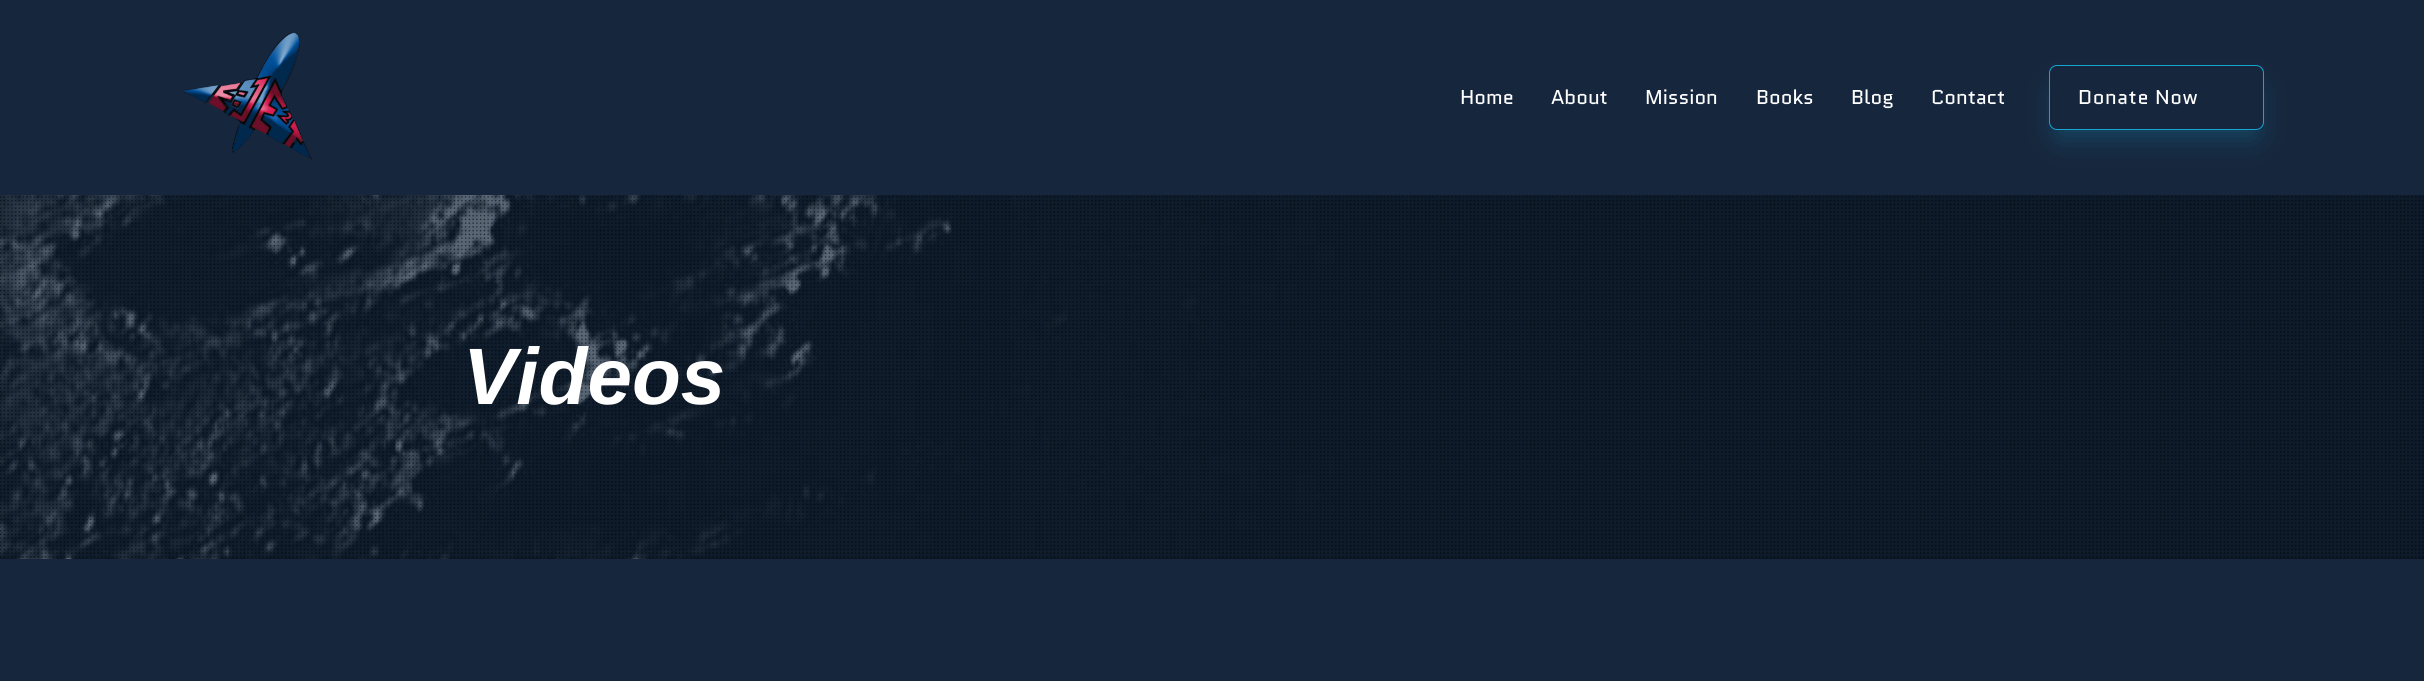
#include <cairo/cairo.h>
#include <math.h>
#include <stddef.h>


static void draw_spaced(cairo_t *cr, double x, double y, const char *s, double letter, double word) {
  cairo_move_to(cr, x, y);
  while (*s) {
    char ch[5] = {0};
    int n = 0;
    do ch[n++] = *s++; while ((*s & 0xC0) == 0x80);
    cairo_show_text(cr, ch);
    cairo_rel_move_to(cr, letter + word * (*ch == ' '), 0);
  }
}

static void rounded_rect(cairo_t *cr, double x, double y, double w, double h, double r) {
  cairo_new_sub_path(cr);
  cairo_arc(cr, x + w - r, y + h - r, r, 0, M_PI / 2);
  cairo_arc(cr, x + r, y + h - r, r, M_PI / 2, M_PI);
  cairo_arc(cr, x + r, y + r, r, M_PI, 1.5 * M_PI);
  cairo_arc(cr, x + w - r, y + r, r, 1.5 * M_PI, 2 * M_PI);
  cairo_close_path(cr);
}

static void draw_shadow(cairo_t *cr, double x, double y, double w, double h, double r, double blur, double alpha) {
  cairo_push_group_with_content(cr, CAIRO_CONTENT_ALPHA);
  cairo_set_operator(cr, CAIRO_OPERATOR_SOURCE);
  for (int i = 15; i >= -15 && fmin(w, h) + blur * i / 3 > 0; i -= 2) {
    double e = blur * i / 6;
    cairo_set_source_rgba(cr, 0, 0, 0, alpha * erfc((i - 1) / 8.5) / 2);
    rounded_rect(cr, x - e, y - e, w + 2 * e, h + 2 * e, fmax(0, fmin(r + e + blur * .6, fmin(w, h) / 2 + e)));
    cairo_fill(cr);
  }
  cairo_pattern_t *soft = cairo_pop_group(cr);
  cairo_mask(cr, soft);
  cairo_pattern_destroy(soft);
}

static void draw_image(cairo_t *cr, const char *path, double x, double y, double w, double h) {
  cairo_surface_t *image = cairo_image_surface_create_from_png(path);
  cairo_save(cr);
  cairo_set_source_surface(cr, image, x, y);
  cairo_rectangle(cr, x, y, w, h);
  cairo_fill(cr);
  cairo_restore(cr);
  cairo_surface_destroy(image);
}

static void draw(cairo_t *cr) {
  cairo_set_source_rgb(cr, 1, 1, 1);
  cairo_paint(cr);
  cairo_set_source_rgb(cr, 22 / 255.0, 38 / 255.0, 61 / 255.0);
  cairo_rectangle(cr, 0, 0, 2424, 195);
  cairo_fill(cr);
  draw_image(cr, "images/1.png", 183, 32, 129, 128);
  cairo_save(cr);
  cairo_set_fill_rule(cr, CAIRO_FILL_RULE_EVEN_ODD);
  cairo_new_path(cr);
  cairo_move_to(cr, 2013, 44);
  cairo_line_to(cr, 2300, 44);
  cairo_line_to(cr, 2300, 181);
  cairo_line_to(cr, 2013, 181);
  cairo_close_path(cr);
  cairo_move_to(cr, 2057, 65);
  cairo_line_to(cr, 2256, 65);
  cairo_curve_to(cr, 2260.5, 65, 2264, 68.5, 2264, 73);
  cairo_line_to(cr, 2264, 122);
  cairo_curve_to(cr, 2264, 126.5, 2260.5, 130, 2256, 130);
  cairo_line_to(cr, 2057, 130);
  cairo_curve_to(cr, 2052.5, 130, 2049, 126.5, 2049, 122);
  cairo_line_to(cr, 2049, 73);
  cairo_curve_to(cr, 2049, 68.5, 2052.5, 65, 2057, 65);
  cairo_close_path(cr);
  cairo_clip(cr);
  cairo_set_source_rgb(cr, 20 / 255.0, 165 / 255.0, 211 / 255.0);
  draw_shadow(cr, 2059, 90, 195, 45, 0, 15, 0.31);
  cairo_restore(cr);
  rounded_rect(cr, 2049.5, 65.5, 214, 64, 7.5);
  cairo_set_source_rgb(cr, 20 / 255.0, 165 / 255.0, 211 / 255.0);
  cairo_set_line_width(cr, 1);
  cairo_stroke(cr);
  draw_image(cr, "images/2.png", 0, 195, 2424, 364);
  draw_image(cr, "images/3.png", 0, 195, 2424, 364);
  cairo_set_source_rgb(cr, 22 / 255.0, 38 / 255.0, 61 / 255.0);
  cairo_rectangle(cr, 0, 559, 2424, 122);
  cairo_fill(cr);
  cairo_select_font_face(cr, "Quantico", CAIRO_FONT_SLANT_NORMAL, CAIRO_FONT_WEIGHT_NORMAL);
  cairo_set_font_size(cr, 20);
  cairo_set_source_rgb(cr, 1, 1, 1);
  cairo_move_to(cr, 1460, 104);
  cairo_show_text(cr, "Home");
  cairo_move_to(cr, 1551, 104);
  cairo_show_text(cr, "About");
  cairo_move_to(cr, 1645, 104);
  cairo_show_text(cr, "Mission");
  cairo_move_to(cr, 1756, 104);
  cairo_show_text(cr, "Books");
  cairo_move_to(cr, 1851, 104);
  cairo_show_text(cr, "Blog");
  cairo_move_to(cr, 1931, 104);
  cairo_show_text(cr, "Contact");
  draw_spaced(cr, 2078, 104, "Donate Now", 0.6, 0);
  cairo_select_font_face(cr, "Liberation Sans", CAIRO_FONT_SLANT_ITALIC, CAIRO_FONT_WEIGHT_BOLD);
  cairo_set_font_size(cr, 80);
  cairo_move_to(cr, 463, 404);
  cairo_show_text(cr, "Videos");
}

int main(void) {
  cairo_surface_t *surface = cairo_image_surface_create(CAIRO_FORMAT_RGB24, 2424, 681);
  cairo_t *cr = cairo_create(surface);
  cairo_font_options_t *options = cairo_font_options_create();
  cairo_font_options_set_hint_metrics(options, CAIRO_HINT_METRICS_OFF);
  cairo_font_options_set_hint_style(options, CAIRO_HINT_STYLE_NONE);
  cairo_set_font_options(cr, options);
  cairo_set_miter_limit(cr, 4);
  draw(cr);
  cairo_surface_write_to_png(surface, "out.png");
  cairo_font_options_destroy(options);
  cairo_destroy(cr);
  cairo_surface_destroy(surface);
  return 0;
}
